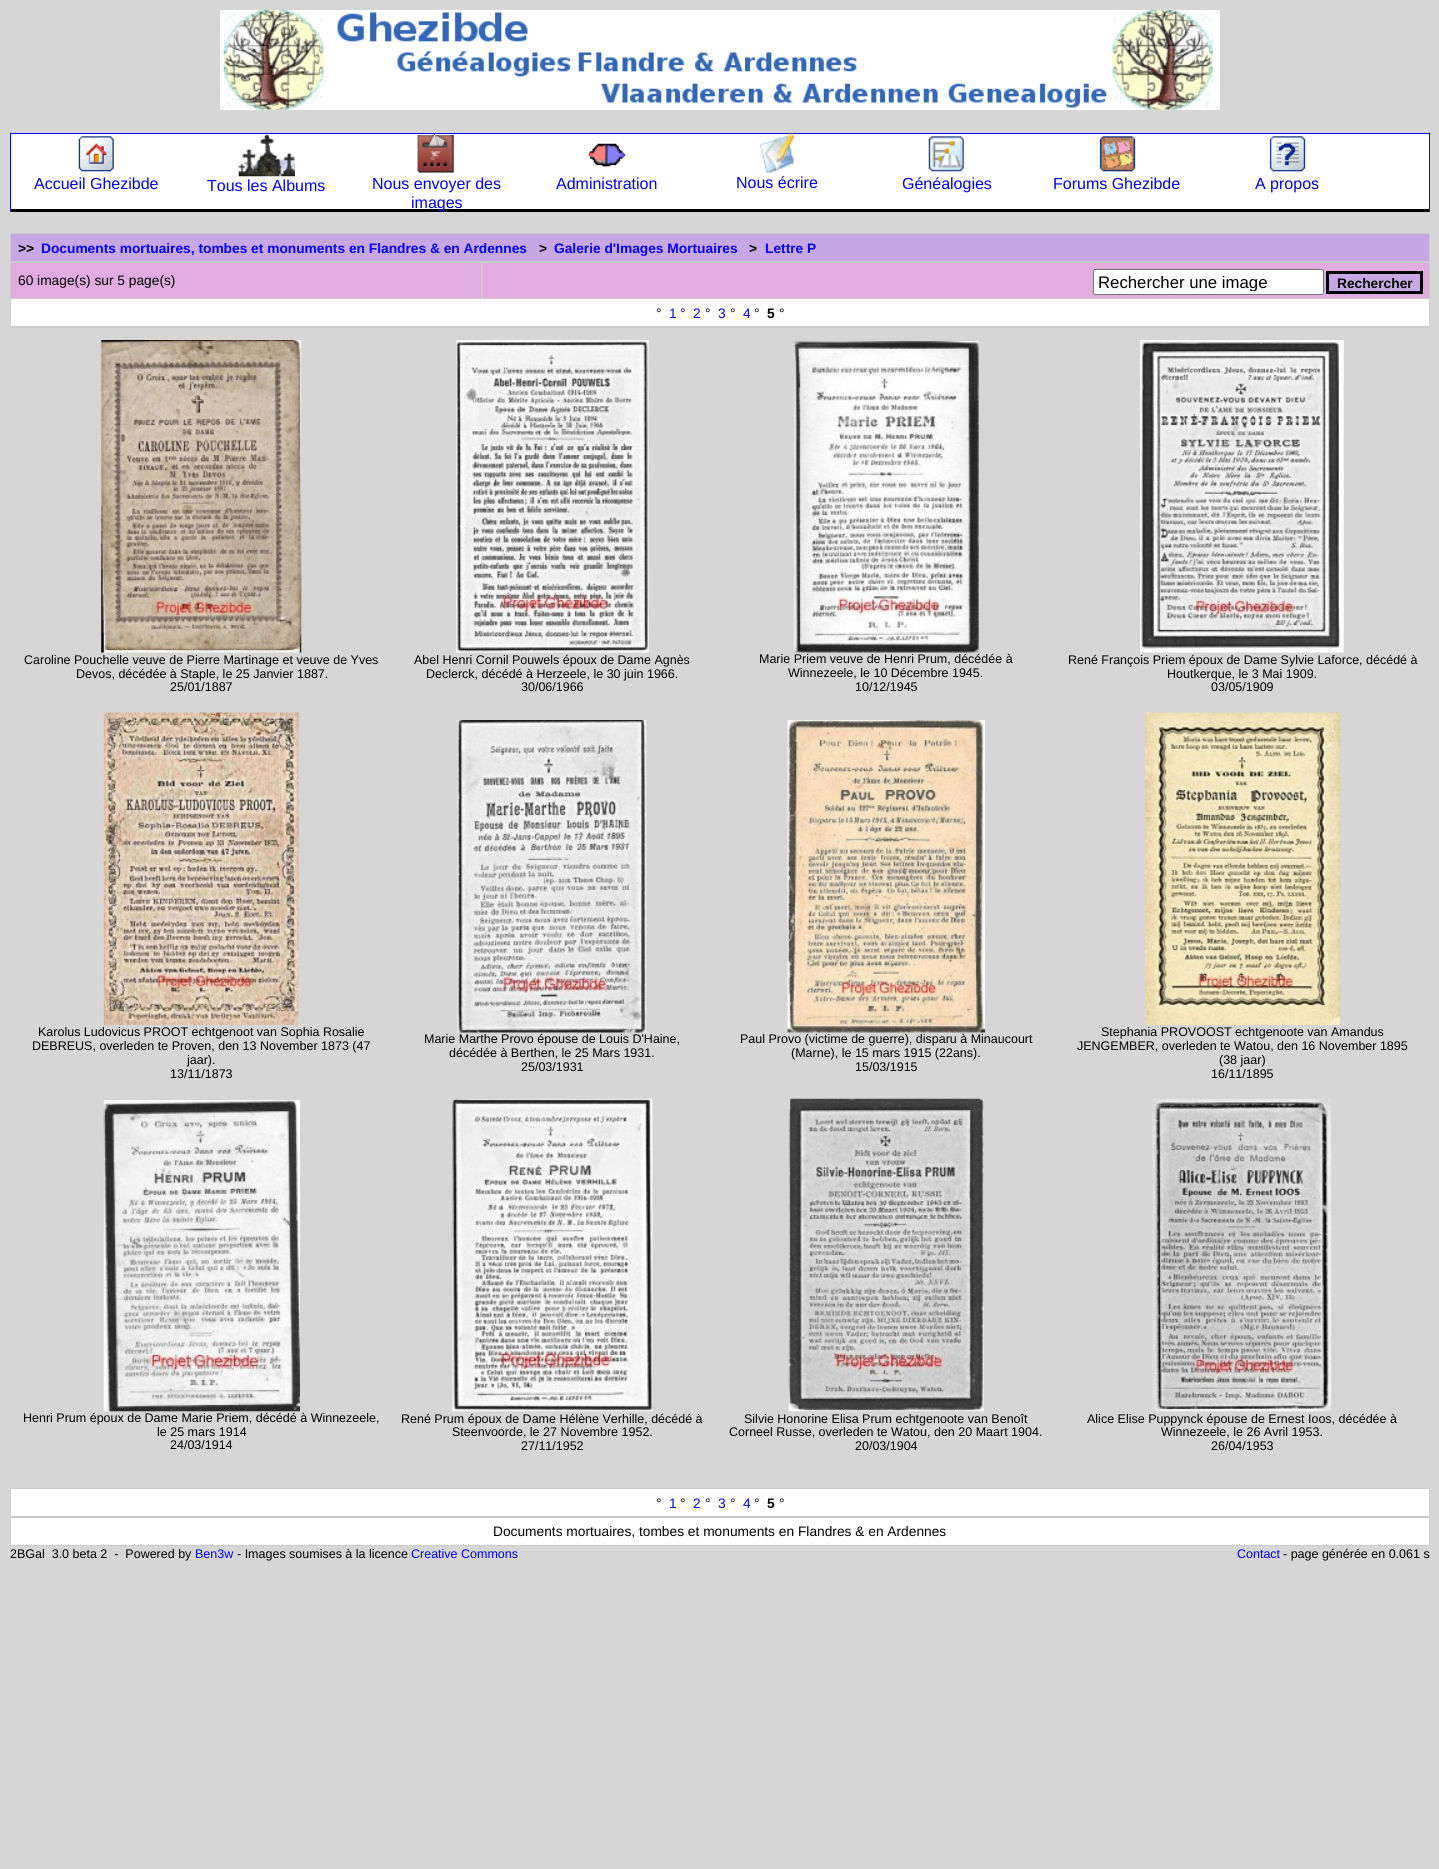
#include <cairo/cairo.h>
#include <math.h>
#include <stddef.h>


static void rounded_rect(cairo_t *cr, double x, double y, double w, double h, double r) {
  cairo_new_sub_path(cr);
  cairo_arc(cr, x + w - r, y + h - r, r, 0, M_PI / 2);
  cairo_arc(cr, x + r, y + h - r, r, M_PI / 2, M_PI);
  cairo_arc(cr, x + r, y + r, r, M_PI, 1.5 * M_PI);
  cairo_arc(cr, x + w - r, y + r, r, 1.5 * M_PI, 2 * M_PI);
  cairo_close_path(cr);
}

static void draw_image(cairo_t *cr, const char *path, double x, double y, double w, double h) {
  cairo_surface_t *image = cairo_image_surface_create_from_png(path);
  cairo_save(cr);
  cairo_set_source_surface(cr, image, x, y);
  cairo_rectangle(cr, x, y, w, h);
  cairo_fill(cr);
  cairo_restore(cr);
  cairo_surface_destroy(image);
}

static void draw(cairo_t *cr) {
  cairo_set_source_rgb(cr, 214 / 255.0, 214 / 255.0, 214 / 255.0);
  cairo_paint(cr);
  draw_image(cr, "images/1.png", 220, 10, 1000, 100);
  cairo_set_source_rgb(cr, 1, 1, 1);
  cairo_rectangle(cr, 11, 134, 1418, 75);
  cairo_fill(cr);
  cairo_set_source_rgb(cr, 0, 0, 1);
  cairo_rectangle(cr, 10, 133, 1420, 1);
  cairo_fill(cr);
  cairo_new_path(cr);
  cairo_move_to(cr, 1430, 132);
  cairo_line_to(cr, 1430, 212);
  cairo_line_to(cr, 1429, 209);
  cairo_line_to(cr, 1429, 134);
  cairo_close_path(cr);
  cairo_fill(cr);
  cairo_set_source_rgb(cr, 0, 0, 0);
  cairo_new_path(cr);
  cairo_move_to(cr, 1430, 212);
  cairo_line_to(cr, 10, 212);
  cairo_line_to(cr, 11, 209);
  cairo_line_to(cr, 1429, 209);
  cairo_close_path(cr);
  cairo_fill(cr);
  cairo_set_source_rgb(cr, 0, 0, 1);
  cairo_new_path(cr);
  cairo_move_to(cr, 10, 212);
  cairo_line_to(cr, 10, 132);
  cairo_line_to(cr, 11, 134);
  cairo_line_to(cr, 11, 209);
  cairo_close_path(cr);
  cairo_fill(cr);
  draw_image(cr, "images/2.png", 78, 136, 36, 36);
  draw_image(cr, "images/3.png", 238, 133, 57, 44);
  draw_image(cr, "images/4.png", 417, 133, 37, 40);
  draw_image(cr, "images/5.png", 588, 143, 38, 24);
  draw_image(cr, "images/6.png", 760, 133, 34, 40);
  draw_image(cr, "images/7.png", 928, 136, 36, 36);
  draw_image(cr, "images/8.png", 1099, 136, 37, 36);
  draw_image(cr, "images/9.png", 1269, 136, 37, 36);
  cairo_set_source_rgb(cr, 204 / 255.0, 204 / 255.0, 204 / 255.0);
  cairo_rectangle(cr, 10, 233, 1420, 95);
  cairo_fill(cr);
  cairo_set_source_rgb(cr, 200 / 255.0, 168 / 255.0, 228 / 255.0);
  cairo_rectangle(cr, 11, 234, 1418, 27);
  cairo_fill(cr);
  cairo_set_source_rgb(cr, 225 / 255.0, 173 / 255.0, 225 / 255.0);
  cairo_rectangle(cr, 11, 263, 470, 35);
  cairo_fill(cr);
  cairo_rectangle(cr, 483, 263, 946, 35);
  cairo_fill(cr);
  cairo_set_source_rgb(cr, 1, 1, 1);
  rounded_rect(cr, 1093.5, 269.5, 230, 25, 2);
  cairo_fill_preserve(cr);
  cairo_set_source_rgb(cr, 118 / 255.0, 118 / 255.0, 118 / 255.0);
  cairo_set_line_width(cr, 1);
  cairo_stroke(cr);
  cairo_set_source_rgb(cr, 200 / 255.0, 168 / 255.0, 228 / 255.0);
  cairo_rectangle(cr, 1327.5, 272.5, 94, 20);
  cairo_fill_preserve(cr);
  cairo_set_source_rgb(cr, 0, 0, 0);
  cairo_set_line_width(cr, 3);
  cairo_stroke(cr);
  cairo_set_source_rgb(cr, 1, 1, 1);
  cairo_rectangle(cr, 11, 299, 1418, 27);
  cairo_fill(cr);
  draw_image(cr, "images/10.png", 101, 340, 201, 313);
  draw_image(cr, "images/11.png", 456, 340, 193, 313);
  draw_image(cr, "images/12.png", 793, 341, 186, 312);
  draw_image(cr, "images/13.png", 1140, 340, 204, 313);
  draw_image(cr, "images/14.png", 103, 712, 196, 313);
  draw_image(cr, "images/15.png", 457, 720, 190, 313);
  draw_image(cr, "images/16.png", 787, 720, 198, 313);
  draw_image(cr, "images/17.png", 1145, 712, 195, 313);
  draw_image(cr, "images/18.png", 103, 1100, 197, 312);
  draw_image(cr, "images/19.png", 452, 1098, 201, 314);
  draw_image(cr, "images/20.png", 788, 1098, 196, 314);
  draw_image(cr, "images/21.png", 1152, 1098, 180, 314);
  cairo_set_source_rgb(cr, 204 / 255.0, 204 / 255.0, 204 / 255.0);
  cairo_rectangle(cr, 10, 1488, 1420, 58);
  cairo_fill(cr);
  cairo_set_source_rgb(cr, 1, 1, 1);
  cairo_rectangle(cr, 11, 1489, 1418, 27);
  cairo_fill(cr);
  cairo_rectangle(cr, 11, 1518, 1418, 27);
  cairo_fill(cr);
  cairo_select_font_face(cr, "Liberation Sans", CAIRO_FONT_SLANT_NORMAL, CAIRO_FONT_WEIGHT_NORMAL);
  cairo_set_font_size(cr, 16);
  cairo_set_source_rgb(cr, 0, 0, 1);
  cairo_move_to(cr, 34, 189);
  cairo_show_text(cr, "Accueil Ghezibde");
  cairo_move_to(cr, 207, 191);
  cairo_show_text(cr, "Tous les Albums");
  cairo_move_to(cr, 372, 189);
  cairo_show_text(cr, "Nous envoyer des");
  cairo_move_to(cr, 411, 208);
  cairo_show_text(cr, "images");
  cairo_move_to(cr, 556, 189);
  cairo_show_text(cr, "Administration");
  cairo_move_to(cr, 736, 188);
  cairo_show_text(cr, "Nous écrire");
  cairo_move_to(cr, 902, 189);
  cairo_show_text(cr, "Généalogies");
  cairo_move_to(cr, 1053, 189);
  cairo_show_text(cr, "Forums Ghezibde");
  cairo_move_to(cr, 1255, 189);
  cairo_show_text(cr, "A propos");
  cairo_select_font_face(cr, "Liberation Sans", CAIRO_FONT_SLANT_NORMAL, CAIRO_FONT_WEIGHT_BOLD);
  cairo_set_font_size(cr, 13.75);
  cairo_set_source_rgb(cr, 0, 0, 0);
  cairo_move_to(cr, 18, 253);
  cairo_show_text(cr, ">>");
  cairo_set_source_rgb(cr, 0, 0, 1);
  cairo_move_to(cr, 41, 253);
  cairo_show_text(cr, "Documents mortuaires, tombes et monuments en Flandres & en Ardennes");
  cairo_set_source_rgb(cr, 0, 0, 0);
  cairo_move_to(cr, 539, 253);
  cairo_show_text(cr, ">");
  cairo_set_source_rgb(cr, 0, 0, 1);
  cairo_move_to(cr, 554, 253);
  cairo_show_text(cr, "Galerie d'Images Mortuaires");
  cairo_set_source_rgb(cr, 0, 0, 0);
  cairo_move_to(cr, 749, 253);
  cairo_show_text(cr, ">");
  cairo_set_source_rgb(cr, 0, 0, 1);
  cairo_move_to(cr, 765, 253);
  cairo_show_text(cr, "Lettre P");
  cairo_select_font_face(cr, "Liberation Sans", CAIRO_FONT_SLANT_NORMAL, CAIRO_FONT_WEIGHT_NORMAL);
  cairo_set_source_rgb(cr, 0, 0, 0);
  cairo_move_to(cr, 18, 285);
  cairo_show_text(cr, "60 image(s) sur 5 page(s)");
  cairo_save(cr);
  cairo_rectangle(cr, 1098, 273, 221, 18);
  cairo_clip(cr);
  cairo_set_font_size(cr, 16.75);
  cairo_move_to(cr, 1098, 288);
  cairo_show_text(cr, "Rechercher une image");
  cairo_restore(cr);
  cairo_select_font_face(cr, "Liberation Sans", CAIRO_FONT_SLANT_NORMAL, CAIRO_FONT_WEIGHT_BOLD);
  cairo_move_to(cr, 1337, 288);
  cairo_show_text(cr, "Rechercher");
  cairo_select_font_face(cr, "Liberation Sans", CAIRO_FONT_SLANT_NORMAL, CAIRO_FONT_WEIGHT_NORMAL);
  cairo_move_to(cr, 656, 318);
  cairo_show_text(cr, "°");
  cairo_set_source_rgb(cr, 0, 0, 1);
  cairo_move_to(cr, 669, 318);
  cairo_show_text(cr, "1");
  cairo_set_source_rgb(cr, 0, 0, 0);
  cairo_move_to(cr, 680, 318);
  cairo_show_text(cr, "°");
  cairo_set_source_rgb(cr, 0, 0, 1);
  cairo_move_to(cr, 693, 318);
  cairo_show_text(cr, "2");
  cairo_set_source_rgb(cr, 0, 0, 0);
  cairo_move_to(cr, 705, 318);
  cairo_show_text(cr, "°");
  cairo_set_source_rgb(cr, 0, 0, 1);
  cairo_move_to(cr, 718, 318);
  cairo_show_text(cr, "3");
  cairo_set_source_rgb(cr, 0, 0, 0);
  cairo_move_to(cr, 730, 318);
  cairo_show_text(cr, "°");
  cairo_set_source_rgb(cr, 0, 0, 1);
  cairo_move_to(cr, 743, 318);
  cairo_show_text(cr, "4");
  cairo_set_source_rgb(cr, 0, 0, 0);
  cairo_move_to(cr, 754, 318);
  cairo_show_text(cr, "°");
  cairo_select_font_face(cr, "Liberation Sans", CAIRO_FONT_SLANT_NORMAL, CAIRO_FONT_WEIGHT_BOLD);
  cairo_move_to(cr, 767, 318);
  cairo_show_text(cr, "5");
  cairo_select_font_face(cr, "Liberation Sans", CAIRO_FONT_SLANT_NORMAL, CAIRO_FONT_WEIGHT_NORMAL);
  cairo_move_to(cr, 779, 318);
  cairo_show_text(cr, "°");
  cairo_set_font_size(cr, 12.5);
  cairo_move_to(cr, 24, 664);
  cairo_show_text(cr, "Caroline Pouchelle veuve de Pierre Martinage et veuve de Yves");
  cairo_move_to(cr, 76, 678);
  cairo_show_text(cr, "Devos, décédée à Staple, le 25 Janvier 1887.");
  cairo_move_to(cr, 170, 691);
  cairo_show_text(cr, "25/01/1887");
  cairo_move_to(cr, 414, 664);
  cairo_show_text(cr, "Abel Henri Cornil Pouwels époux de Dame Agnès");
  cairo_move_to(cr, 426, 678);
  cairo_show_text(cr, "Declerck, décédé à Herzeele, le 30 juin 1966.");
  cairo_move_to(cr, 521, 691);
  cairo_show_text(cr, "30/06/1966");
  cairo_move_to(cr, 759, 663);
  cairo_show_text(cr, "Marie Priem veuve de Henri Prum, décédée à");
  cairo_move_to(cr, 788, 677);
  cairo_show_text(cr, "Winnezeele, le 10 Décembre 1945.");
  cairo_move_to(cr, 855, 691);
  cairo_show_text(cr, "10/12/1945");
  cairo_move_to(cr, 1068, 664);
  cairo_show_text(cr, "René François Priem époux de Dame Sylvie Laforce, décédé à");
  cairo_move_to(cr, 1167, 678);
  cairo_show_text(cr, "Houtkerque, le 3 Mai 1909.");
  cairo_move_to(cr, 1211, 691);
  cairo_show_text(cr, "03/05/1909");
  cairo_move_to(cr, 38, 1036);
  cairo_show_text(cr, "Karolus Ludovicus PROOT echtgenoot van Sophia Rosalie");
  cairo_move_to(cr, 32, 1050);
  cairo_show_text(cr, "DEBREUS, overleden te Proven, den 13 November 1873 (47");
  cairo_move_to(cr, 187, 1064);
  cairo_show_text(cr, "jaar).");
  cairo_move_to(cr, 170, 1078);
  cairo_show_text(cr, "13/11/1873");
  cairo_move_to(cr, 424, 1043);
  cairo_show_text(cr, "Marie Marthe Provo épouse de Louis D'Haine,");
  cairo_move_to(cr, 449, 1057);
  cairo_show_text(cr, "décédée à Berthen, le 25 Mars 1931.");
  cairo_move_to(cr, 521, 1071);
  cairo_show_text(cr, "25/03/1931");
  cairo_move_to(cr, 740, 1043);
  cairo_show_text(cr, "Paul Provo (victime de guerre), disparu à Minaucourt");
  cairo_move_to(cr, 791, 1057);
  cairo_show_text(cr, "(Marne), le 15 mars 1915 (22ans).");
  cairo_move_to(cr, 855, 1071);
  cairo_show_text(cr, "15/03/1915");
  cairo_move_to(cr, 1101, 1036);
  cairo_show_text(cr, "Stephania PROVOOST echtgenoote van Amandus");
  cairo_move_to(cr, 1077, 1050);
  cairo_show_text(cr, "JENGEMBER, overleden te Watou, den 16 November 1895");
  cairo_move_to(cr, 1219, 1064);
  cairo_show_text(cr, "(38 jaar)");
  cairo_move_to(cr, 1211, 1078);
  cairo_show_text(cr, "16/11/1895");
  cairo_move_to(cr, 23, 1422);
  cairo_show_text(cr, "Henri Prum époux de Dame Marie Priem, décédé à Winnezeele,");
  cairo_move_to(cr, 157, 1436);
  cairo_show_text(cr, "le 25 mars 1914");
  cairo_move_to(cr, 170, 1449);
  cairo_show_text(cr, "24/03/1914");
  cairo_move_to(cr, 401, 1423);
  cairo_show_text(cr, "René Prum époux de Dame Hélène Verhille, décédé à");
  cairo_move_to(cr, 452, 1436);
  cairo_show_text(cr, "Steenvoorde, le 27 Novembre 1952.");
  cairo_move_to(cr, 521, 1450);
  cairo_show_text(cr, "27/11/1952");
  cairo_move_to(cr, 744, 1423);
  cairo_show_text(cr, "Silvie Honorine Elisa Prum echtgenoote van Benoît");
  cairo_move_to(cr, 729, 1436);
  cairo_show_text(cr, "Corneel Russe, overleden te Watou, den 20 Maart 1904.");
  cairo_move_to(cr, 855, 1450);
  cairo_show_text(cr, "20/03/1904");
  cairo_move_to(cr, 1087, 1423);
  cairo_show_text(cr, "Alice Elise Puppynck épouse de Ernest Ioos, décédée à");
  cairo_move_to(cr, 1161, 1436);
  cairo_show_text(cr, "Winnezeele, le 26 Avril 1953.");
  cairo_move_to(cr, 1211, 1450);
  cairo_show_text(cr, "26/04/1953");
  cairo_set_font_size(cr, 13.75);
  cairo_move_to(cr, 656, 1508);
  cairo_show_text(cr, "°");
  cairo_set_source_rgb(cr, 0, 0, 1);
  cairo_move_to(cr, 669, 1508);
  cairo_show_text(cr, "1");
  cairo_set_source_rgb(cr, 0, 0, 0);
  cairo_move_to(cr, 680, 1508);
  cairo_show_text(cr, "°");
  cairo_set_source_rgb(cr, 0, 0, 1);
  cairo_move_to(cr, 693, 1508);
  cairo_show_text(cr, "2");
  cairo_set_source_rgb(cr, 0, 0, 0);
  cairo_move_to(cr, 705, 1508);
  cairo_show_text(cr, "°");
  cairo_set_source_rgb(cr, 0, 0, 1);
  cairo_move_to(cr, 718, 1508);
  cairo_show_text(cr, "3");
  cairo_set_source_rgb(cr, 0, 0, 0);
  cairo_move_to(cr, 730, 1508);
  cairo_show_text(cr, "°");
  cairo_set_source_rgb(cr, 0, 0, 1);
  cairo_move_to(cr, 743, 1508);
  cairo_show_text(cr, "4");
  cairo_set_source_rgb(cr, 0, 0, 0);
  cairo_move_to(cr, 754, 1508);
  cairo_show_text(cr, "°");
  cairo_select_font_face(cr, "Liberation Sans", CAIRO_FONT_SLANT_NORMAL, CAIRO_FONT_WEIGHT_BOLD);
  cairo_move_to(cr, 767, 1508);
  cairo_show_text(cr, "5");
  cairo_select_font_face(cr, "Liberation Sans", CAIRO_FONT_SLANT_NORMAL, CAIRO_FONT_WEIGHT_NORMAL);
  cairo_move_to(cr, 779, 1508);
  cairo_show_text(cr, "°");
  cairo_move_to(cr, 493, 1536);
  cairo_show_text(cr, "Documents mortuaires, tombes et monuments en Flandres & en Ardennes");
  cairo_set_font_size(cr, 12.5);
  cairo_move_to(cr, 10, 1558);
  cairo_show_text(cr, "2BGal  3.0 beta 2  -  Powered by");
  cairo_set_source_rgb(cr, 0, 0, 1);
  cairo_move_to(cr, 195, 1558);
  cairo_show_text(cr, "Ben3w");
  cairo_set_source_rgb(cr, 0, 0, 0);
  cairo_move_to(cr, 237, 1558);
  cairo_show_text(cr, "- Images soumises à la licence");
  cairo_set_source_rgb(cr, 0, 0, 1);
  cairo_move_to(cr, 411, 1558);
  cairo_show_text(cr, "Creative Commons");
  cairo_move_to(cr, 1237, 1558);
  cairo_show_text(cr, "Contact");
  cairo_set_source_rgb(cr, 0, 0, 0);
  cairo_move_to(cr, 1283, 1558);
  cairo_show_text(cr, "- page générée en 0.061 s");
}

int main(void) {
  cairo_surface_t *surface = cairo_image_surface_create(CAIRO_FORMAT_RGB24, 1439, 1869);
  cairo_t *cr = cairo_create(surface);
  cairo_font_options_t *options = cairo_font_options_create();
  cairo_font_options_set_hint_metrics(options, CAIRO_HINT_METRICS_OFF);
  cairo_font_options_set_hint_style(options, CAIRO_HINT_STYLE_NONE);
  cairo_set_font_options(cr, options);
  cairo_set_miter_limit(cr, 4);
  draw(cr);
  cairo_surface_write_to_png(surface, "out.png");
  cairo_font_options_destroy(options);
  cairo_destroy(cr);
  cairo_surface_destroy(surface);
  return 0;
}
